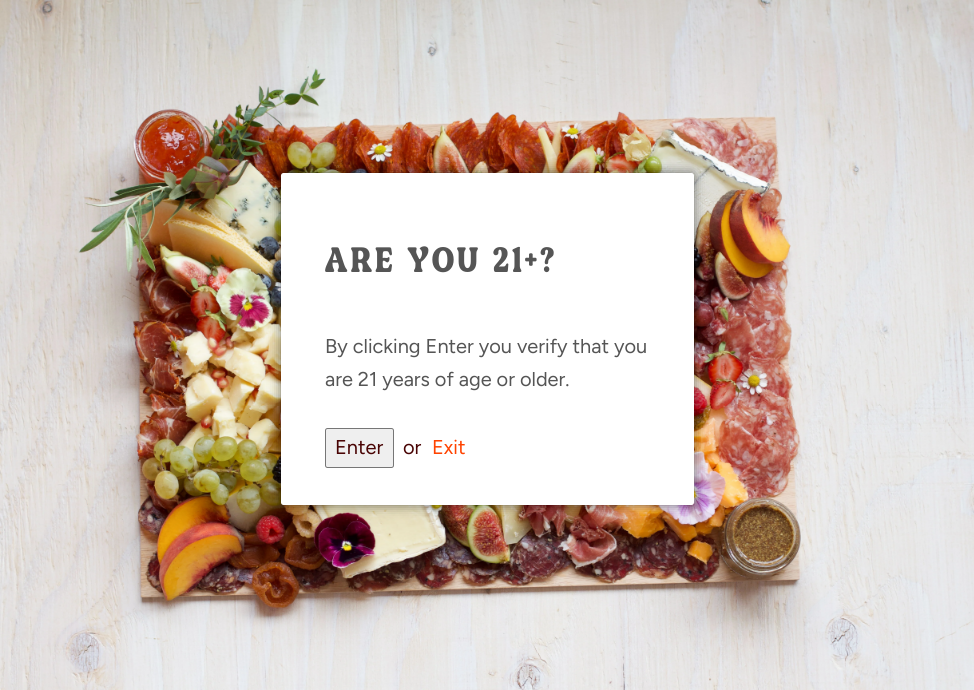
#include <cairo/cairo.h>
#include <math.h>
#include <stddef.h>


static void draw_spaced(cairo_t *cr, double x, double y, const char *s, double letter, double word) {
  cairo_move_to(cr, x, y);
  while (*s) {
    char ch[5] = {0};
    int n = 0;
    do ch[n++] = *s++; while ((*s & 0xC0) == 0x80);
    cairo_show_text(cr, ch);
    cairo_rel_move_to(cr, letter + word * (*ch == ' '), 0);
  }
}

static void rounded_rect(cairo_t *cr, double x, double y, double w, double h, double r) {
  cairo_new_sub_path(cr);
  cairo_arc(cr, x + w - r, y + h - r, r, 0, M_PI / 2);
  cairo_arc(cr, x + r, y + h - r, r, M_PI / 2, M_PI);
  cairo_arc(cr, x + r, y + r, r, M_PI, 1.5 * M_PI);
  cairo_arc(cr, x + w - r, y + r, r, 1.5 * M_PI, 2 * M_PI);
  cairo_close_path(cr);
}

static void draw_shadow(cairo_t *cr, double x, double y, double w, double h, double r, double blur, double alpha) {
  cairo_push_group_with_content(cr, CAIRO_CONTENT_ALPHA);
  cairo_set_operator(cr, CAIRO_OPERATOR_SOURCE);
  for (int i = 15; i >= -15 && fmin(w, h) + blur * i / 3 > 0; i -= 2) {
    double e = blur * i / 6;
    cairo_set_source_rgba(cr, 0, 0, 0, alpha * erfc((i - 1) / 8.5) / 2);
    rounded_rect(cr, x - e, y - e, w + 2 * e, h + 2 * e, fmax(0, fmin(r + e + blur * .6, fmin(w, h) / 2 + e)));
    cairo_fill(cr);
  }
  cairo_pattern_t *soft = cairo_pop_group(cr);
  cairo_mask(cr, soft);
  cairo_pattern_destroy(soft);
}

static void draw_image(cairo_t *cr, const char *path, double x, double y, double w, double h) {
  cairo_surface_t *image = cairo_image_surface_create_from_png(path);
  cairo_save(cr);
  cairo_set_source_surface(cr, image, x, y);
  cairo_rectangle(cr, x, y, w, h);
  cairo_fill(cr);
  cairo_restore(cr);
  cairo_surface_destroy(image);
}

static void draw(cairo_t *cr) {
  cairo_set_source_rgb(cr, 1, 1, 1);
  cairo_paint(cr);
  draw_image(cr, "images/1.png", 0, 0, 974, 690);
  cairo_set_source_rgb(cr, 0, 0, 0);
  draw_shadow(cr, 281, 173, 413, 332, 2.5, 6, 0.5);
  cairo_set_source_rgb(cr, 1, 1, 1);
  rounded_rect(cr, 281, 173, 413, 332, 2.5);
  cairo_fill(cr);
  cairo_set_source_rgb(cr, 239 / 255.0, 239 / 255.0, 239 / 255.0);
  rounded_rect(cr, 325.5, 428.5, 68, 39, 2);
  cairo_fill_preserve(cr);
  cairo_set_source_rgb(cr, 118 / 255.0, 118 / 255.0, 118 / 255.0);
  cairo_set_line_width(cr, 1);
  cairo_stroke(cr);
  cairo_select_font_face(cr, "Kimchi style", CAIRO_FONT_SLANT_NORMAL, CAIRO_FONT_WEIGHT_NORMAL);
  cairo_set_font_size(cr, 51.5);
  cairo_set_source_rgb(cr, 85 / 255.0, 85 / 255.0, 85 / 255.0);
  draw_spaced(cr, 325, 272, "ARE YOU 21+?", 2.5, 0);
  cairo_select_font_face(cr, "Figtree", CAIRO_FONT_SLANT_NORMAL, CAIRO_FONT_WEIGHT_NORMAL);
  cairo_set_font_size(cr, 20);
  cairo_move_to(cr, 325, 353);
  cairo_show_text(cr, "By clicking Enter you verify that you");
  cairo_move_to(cr, 325, 386);
  cairo_show_text(cr, "are 21 years of age or older.");
  cairo_set_source_rgb(cr, 73 / 255.0, 4 / 255.0, 4 / 255.0);
  cairo_move_to(cr, 335, 454);
  cairo_show_text(cr, "Enter");
  cairo_move_to(cr, 403, 454);
  cairo_show_text(cr, "or");
  cairo_set_source_rgb(cr, 1, 67 / 255.0, 0);
  cairo_move_to(cr, 432, 454);
  cairo_show_text(cr, "Exit");
}

int main(void) {
  cairo_surface_t *surface = cairo_image_surface_create(CAIRO_FORMAT_RGB24, 974, 690);
  cairo_t *cr = cairo_create(surface);
  cairo_font_options_t *options = cairo_font_options_create();
  cairo_font_options_set_hint_metrics(options, CAIRO_HINT_METRICS_OFF);
  cairo_font_options_set_hint_style(options, CAIRO_HINT_STYLE_NONE);
  cairo_set_font_options(cr, options);
  cairo_set_miter_limit(cr, 4);
  draw(cr);
  cairo_surface_write_to_png(surface, "out.png");
  cairo_font_options_destroy(options);
  cairo_destroy(cr);
  cairo_surface_destroy(surface);
  return 0;
}
